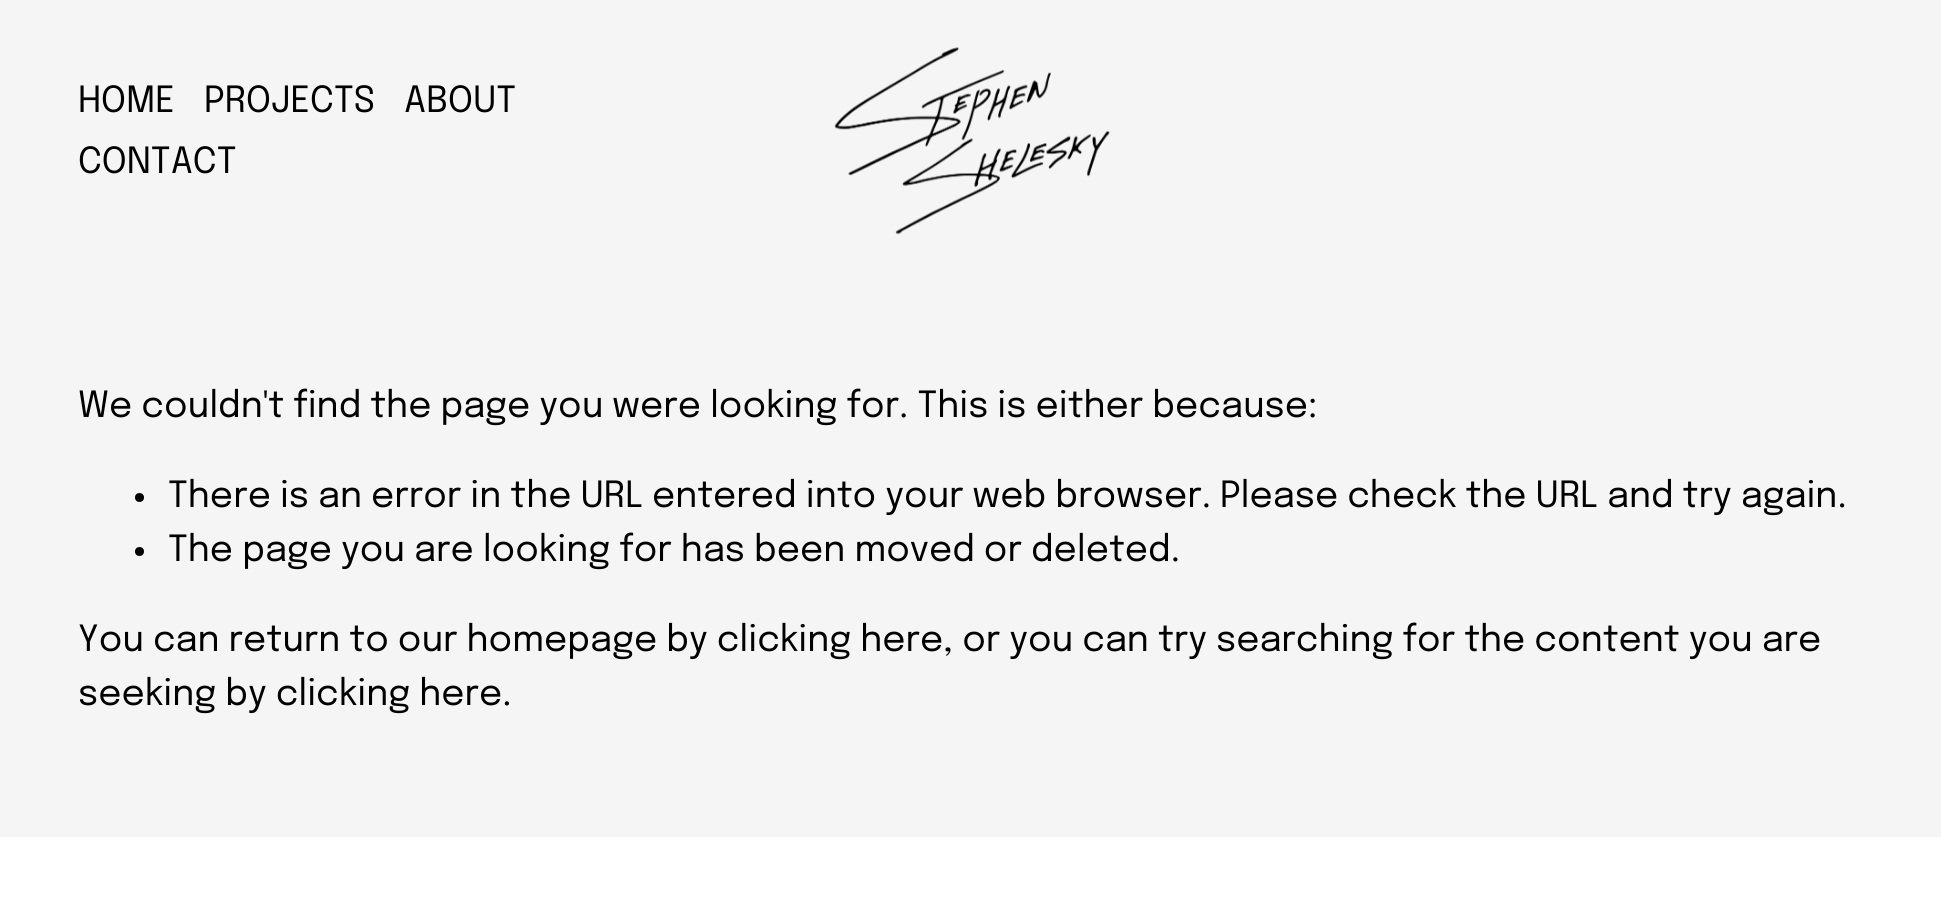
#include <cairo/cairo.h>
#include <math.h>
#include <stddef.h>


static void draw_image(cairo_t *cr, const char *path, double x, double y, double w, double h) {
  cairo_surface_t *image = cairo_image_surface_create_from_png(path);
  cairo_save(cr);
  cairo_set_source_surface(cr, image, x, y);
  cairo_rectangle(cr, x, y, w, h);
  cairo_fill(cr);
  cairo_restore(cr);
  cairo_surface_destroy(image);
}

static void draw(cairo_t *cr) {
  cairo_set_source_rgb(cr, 245 / 255.0, 245 / 255.0, 245 / 255.0);
  cairo_paint(cr);
  draw_image(cr, "images/1.png", 834, 47, 276, 188);
  cairo_set_source_rgb(cr, 0, 0, 0);
  cairo_arc(cr, 139.5, 497.5, 4.5, 0, 2 * M_PI);
  cairo_fill(cr);
  cairo_arc(cr, 139.5, 551.5, 4.5, 0, 2 * M_PI);
  cairo_fill(cr);
  cairo_set_source_rgb(cr, 1, 1, 1);
  cairo_rectangle(cr, 0, 837, 1941, 63);
  cairo_fill(cr);
  cairo_select_font_face(cr, "Epilogue", CAIRO_FONT_SLANT_NORMAL, CAIRO_FONT_WEIGHT_NORMAL);
  cairo_set_font_size(cr, 36);
  cairo_set_source_rgb(cr, 0, 0, 0);
  cairo_move_to(cr, 78, 112);
  cairo_show_text(cr, "HOME");
  cairo_move_to(cr, 204, 112);
  cairo_show_text(cr, "PROJECTS");
  cairo_move_to(cr, 404, 112);
  cairo_show_text(cr, "ABOUT");
  cairo_move_to(cr, 78, 173);
  cairo_show_text(cr, "CONTACT");
  cairo_move_to(cr, 78, 417);
  cairo_show_text(cr, "We couldn't find the page you were looking for. This is either because:");
  cairo_move_to(cr, 168, 507);
  cairo_show_text(cr, "There is an error in the URL entered into your web browser. Please check the URL and try again.");
  cairo_move_to(cr, 168, 561);
  cairo_show_text(cr, "The page you are looking for has been moved or deleted.");
  cairo_move_to(cr, 78, 651);
  cairo_show_text(cr, "You can return to our homepage by clicking here, or you can try searching for the content you are");
  cairo_move_to(cr, 78, 705);
  cairo_show_text(cr, "seeking by clicking here.");
}

int main(void) {
  cairo_surface_t *surface = cairo_image_surface_create(CAIRO_FORMAT_RGB24, 1941, 900);
  cairo_t *cr = cairo_create(surface);
  cairo_font_options_t *options = cairo_font_options_create();
  cairo_font_options_set_hint_metrics(options, CAIRO_HINT_METRICS_OFF);
  cairo_font_options_set_hint_style(options, CAIRO_HINT_STYLE_NONE);
  cairo_set_font_options(cr, options);
  cairo_set_miter_limit(cr, 4);
  draw(cr);
  cairo_surface_write_to_png(surface, "out.png");
  cairo_font_options_destroy(options);
  cairo_destroy(cr);
  cairo_surface_destroy(surface);
  return 0;
}
